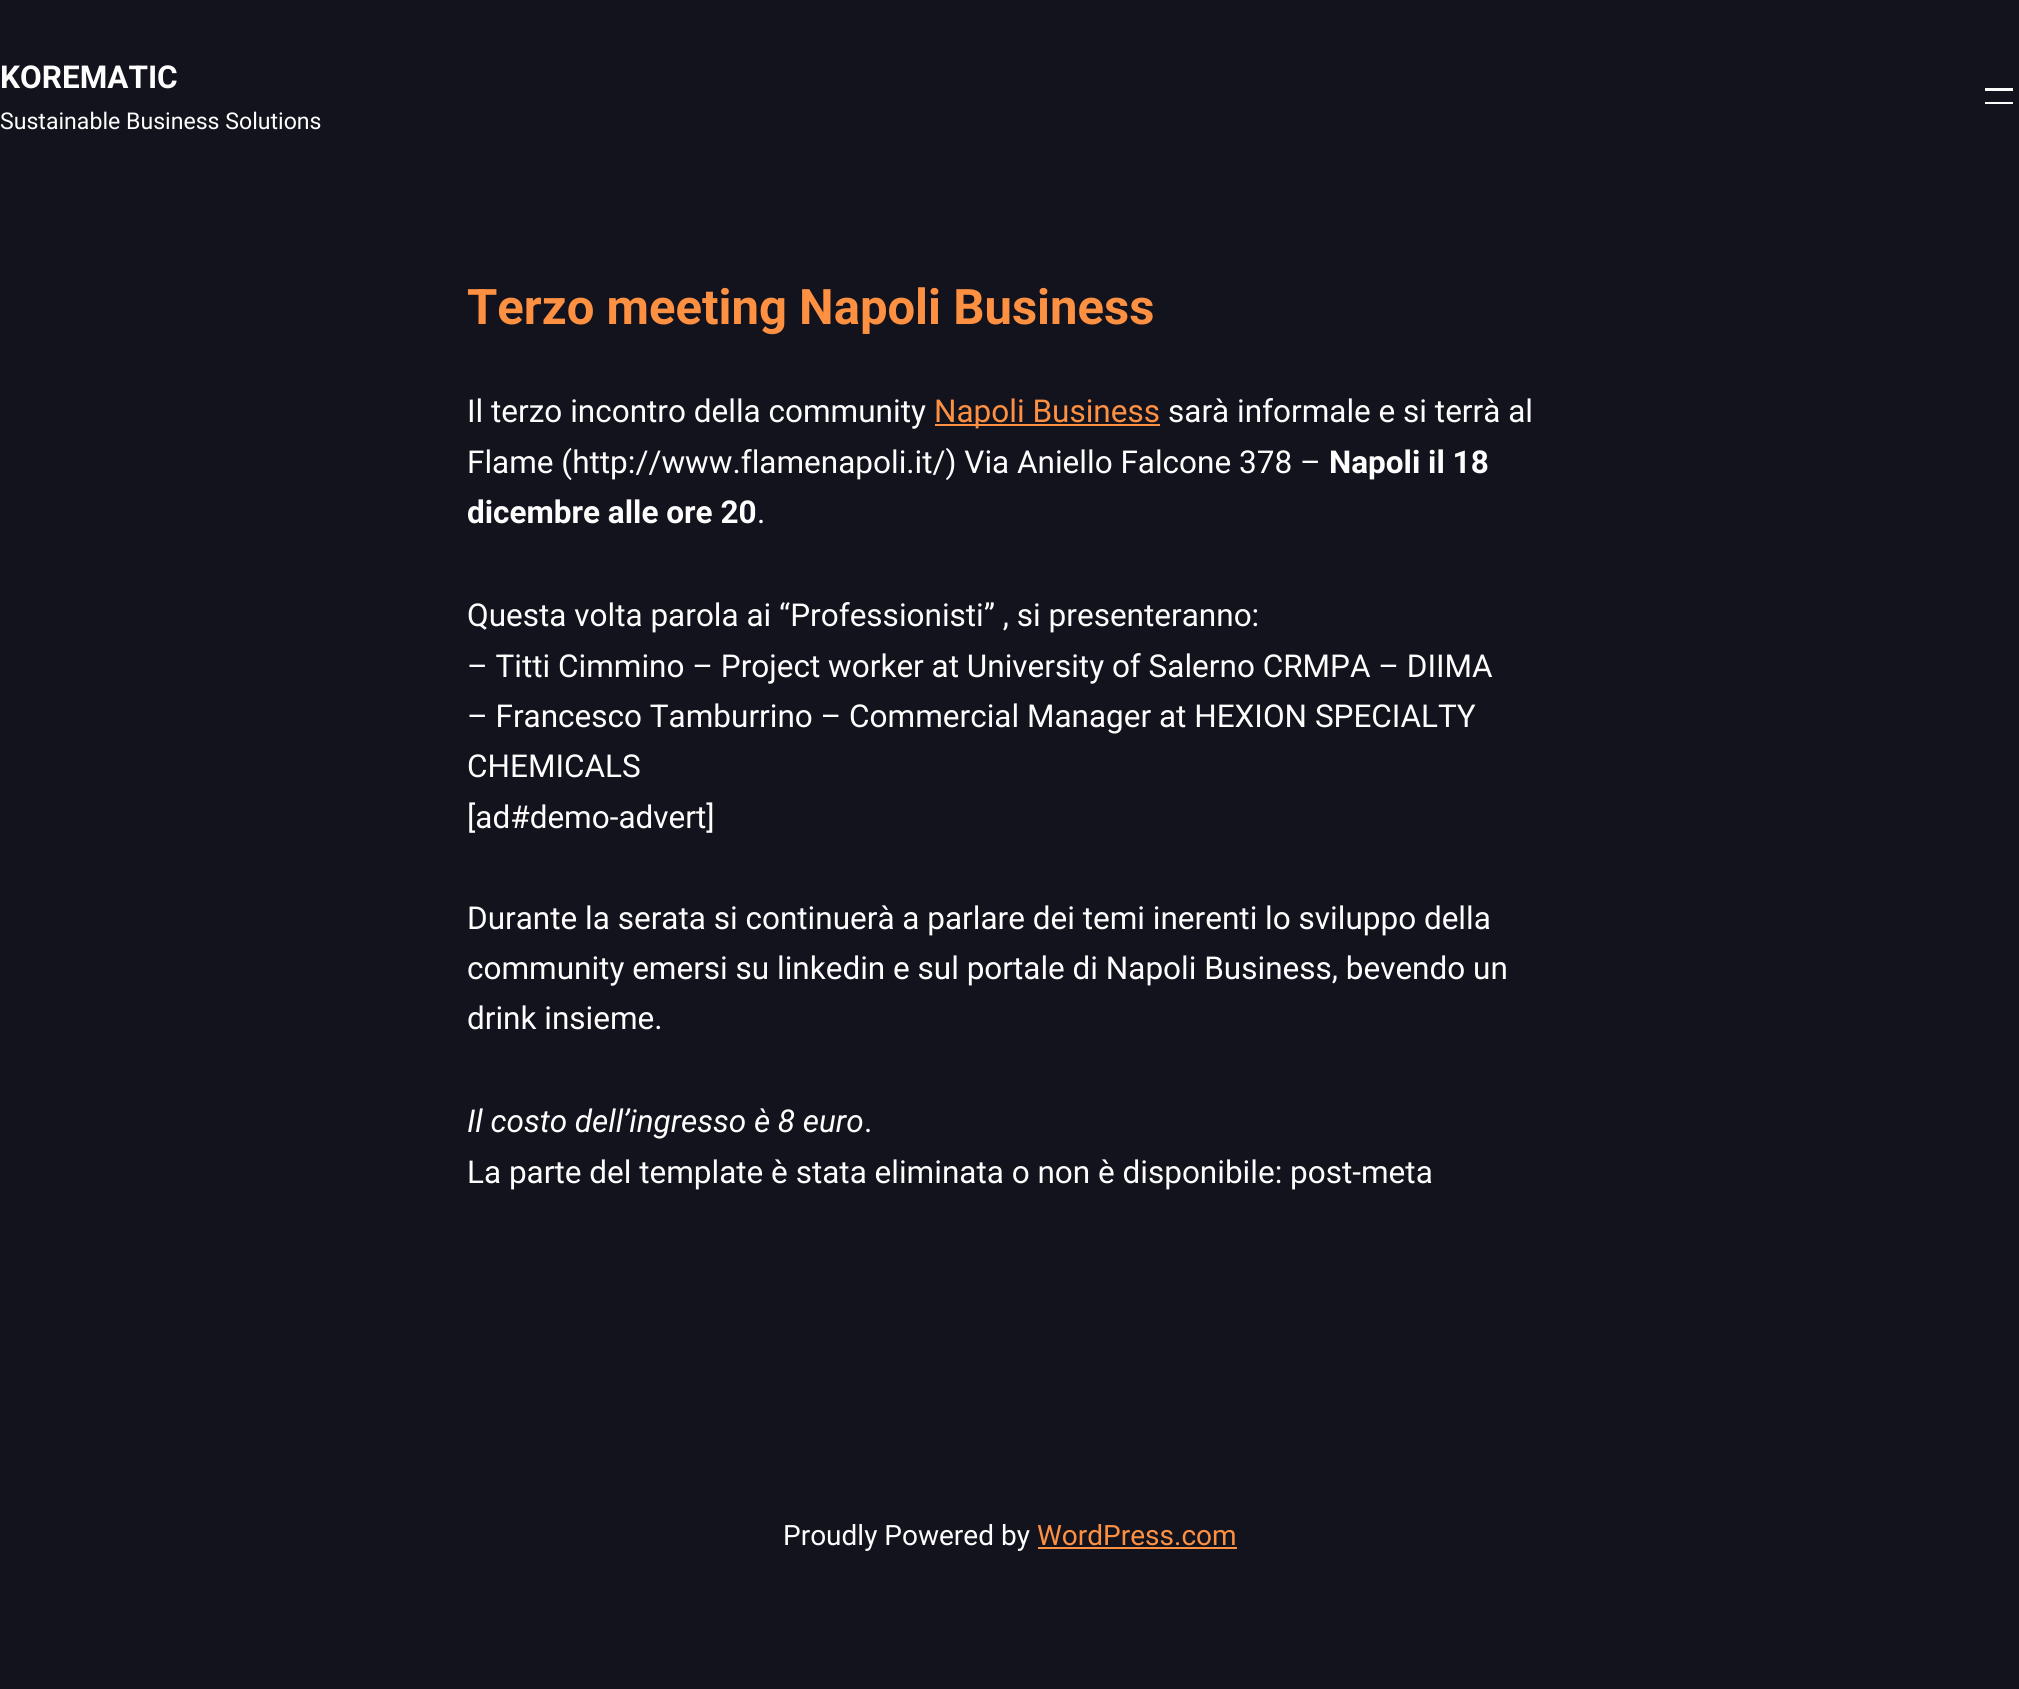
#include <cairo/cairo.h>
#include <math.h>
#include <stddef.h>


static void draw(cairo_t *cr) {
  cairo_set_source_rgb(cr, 19 / 255.0, 19 / 255.0, 30 / 255.0);
  cairo_paint(cr);
  cairo_set_source_rgb(cr, 253 / 255.0, 253 / 255.0, 253 / 255.0);
  cairo_rectangle(cr, 1985, 88, 28, 3);
  cairo_fill(cr);
  cairo_rectangle(cr, 1985, 102, 28, 2);
  cairo_fill(cr);
  cairo_set_source_rgb(cr, 254 / 255.0, 144 / 255.0, 66 / 255.0);
  cairo_rectangle(cr, 935, 424, 225, 2);
  cairo_fill(cr);
  cairo_rectangle(cr, 1038, 1547, 199, 2);
  cairo_fill(cr);
  cairo_select_font_face(cr, "Roboto", CAIRO_FONT_SLANT_NORMAL, CAIRO_FONT_WEIGHT_BOLD);
  cairo_set_font_size(cr, 31.5);
  cairo_set_source_rgb(cr, 253 / 255.0, 253 / 255.0, 253 / 255.0);
  cairo_move_to(cr, 0, 88);
  cairo_show_text(cr, "KOREMATIC");
  cairo_select_font_face(cr, "Roboto", CAIRO_FONT_SLANT_NORMAL, CAIRO_FONT_WEIGHT_NORMAL);
  cairo_set_font_size(cr, 23.1);
  cairo_move_to(cr, 0, 129);
  cairo_show_text(cr, "Sustainable Business Solutions");
  cairo_select_font_face(cr, "Roboto", CAIRO_FONT_SLANT_NORMAL, CAIRO_FONT_WEIGHT_BOLD);
  cairo_set_font_size(cr, 49);
  cairo_set_source_rgb(cr, 254 / 255.0, 144 / 255.0, 66 / 255.0);
  cairo_move_to(cr, 467, 324);
  cairo_show_text(cr, "Terzo meeting Napoli Business");
  cairo_select_font_face(cr, "Roboto", CAIRO_FONT_SLANT_NORMAL, CAIRO_FONT_WEIGHT_NORMAL);
  cairo_set_font_size(cr, 31.5);
  cairo_set_source_rgb(cr, 253 / 255.0, 253 / 255.0, 253 / 255.0);
  cairo_move_to(cr, 467, 422);
  cairo_show_text(cr, "Il terzo incontro della community");
  cairo_set_source_rgb(cr, 254 / 255.0, 144 / 255.0, 66 / 255.0);
  cairo_move_to(cr, 934, 422);
  cairo_show_text(cr, "Napoli Business");
  cairo_set_source_rgb(cr, 253 / 255.0, 253 / 255.0, 253 / 255.0);
  cairo_move_to(cr, 1168, 422);
  cairo_show_text(cr, "sarà informale e si terrà al");
  cairo_move_to(cr, 467, 473);
  cairo_show_text(cr, "Flame (http://www.flamenapoli.it/) Via Aniello Falcone 378 –");
  cairo_select_font_face(cr, "Roboto", CAIRO_FONT_SLANT_NORMAL, CAIRO_FONT_WEIGHT_BOLD);
  cairo_move_to(cr, 1329, 473);
  cairo_show_text(cr, "Napoli il 18");
  cairo_move_to(cr, 467, 523);
  cairo_show_text(cr, "dicembre alle ore 20");
  cairo_select_font_face(cr, "Roboto", CAIRO_FONT_SLANT_NORMAL, CAIRO_FONT_WEIGHT_NORMAL);
  cairo_move_to(cr, 757, 523);
  cairo_show_text(cr, ".");
  cairo_move_to(cr, 467, 626);
  cairo_show_text(cr, "Questa volta parola ai “Professionisti” , si presenteranno:");
  cairo_move_to(cr, 467, 677);
  cairo_show_text(cr, "– Titti Cimmino – Project worker at University of Salerno CRMPA – DIIMA");
  cairo_move_to(cr, 467, 727);
  cairo_show_text(cr, "– Francesco Tamburrino – Commercial Manager at HEXION SPECIALTY");
  cairo_move_to(cr, 467, 777);
  cairo_show_text(cr, "CHEMICALS");
  cairo_move_to(cr, 467, 828);
  cairo_show_text(cr, "[ad#demo-advert]");
  cairo_move_to(cr, 467, 929);
  cairo_show_text(cr, "Durante la serata si continuerà a parlare dei temi inerenti lo sviluppo della");
  cairo_move_to(cr, 467, 979);
  cairo_show_text(cr, "community emersi su linkedin e sul portale di Napoli Business, bevendo un");
  cairo_move_to(cr, 467, 1029);
  cairo_show_text(cr, "drink insieme.");
  cairo_select_font_face(cr, "Roboto", CAIRO_FONT_SLANT_ITALIC, CAIRO_FONT_WEIGHT_NORMAL);
  cairo_move_to(cr, 467, 1132);
  cairo_show_text(cr, "Il costo dell’ingresso è 8 euro");
  cairo_select_font_face(cr, "Roboto", CAIRO_FONT_SLANT_NORMAL, CAIRO_FONT_WEIGHT_NORMAL);
  cairo_move_to(cr, 864, 1132);
  cairo_show_text(cr, ".");
  cairo_move_to(cr, 467, 1183);
  cairo_show_text(cr, "La parte del template è stata eliminata o non è disponibile: post-meta");
  cairo_set_font_size(cr, 28);
  cairo_move_to(cr, 783, 1545);
  cairo_show_text(cr, "Proudly Powered by");
  cairo_set_source_rgb(cr, 254 / 255.0, 144 / 255.0, 66 / 255.0);
  cairo_move_to(cr, 1037, 1545);
  cairo_show_text(cr, "WordPress.com");
}

int main(void) {
  cairo_surface_t *surface = cairo_image_surface_create(CAIRO_FORMAT_RGB24, 2019, 1689);
  cairo_t *cr = cairo_create(surface);
  cairo_font_options_t *options = cairo_font_options_create();
  cairo_font_options_set_hint_metrics(options, CAIRO_HINT_METRICS_OFF);
  cairo_font_options_set_hint_style(options, CAIRO_HINT_STYLE_NONE);
  cairo_set_font_options(cr, options);
  cairo_set_miter_limit(cr, 4);
  draw(cr);
  cairo_surface_write_to_png(surface, "out.png");
  cairo_font_options_destroy(options);
  cairo_destroy(cr);
  cairo_surface_destroy(surface);
  return 0;
}
